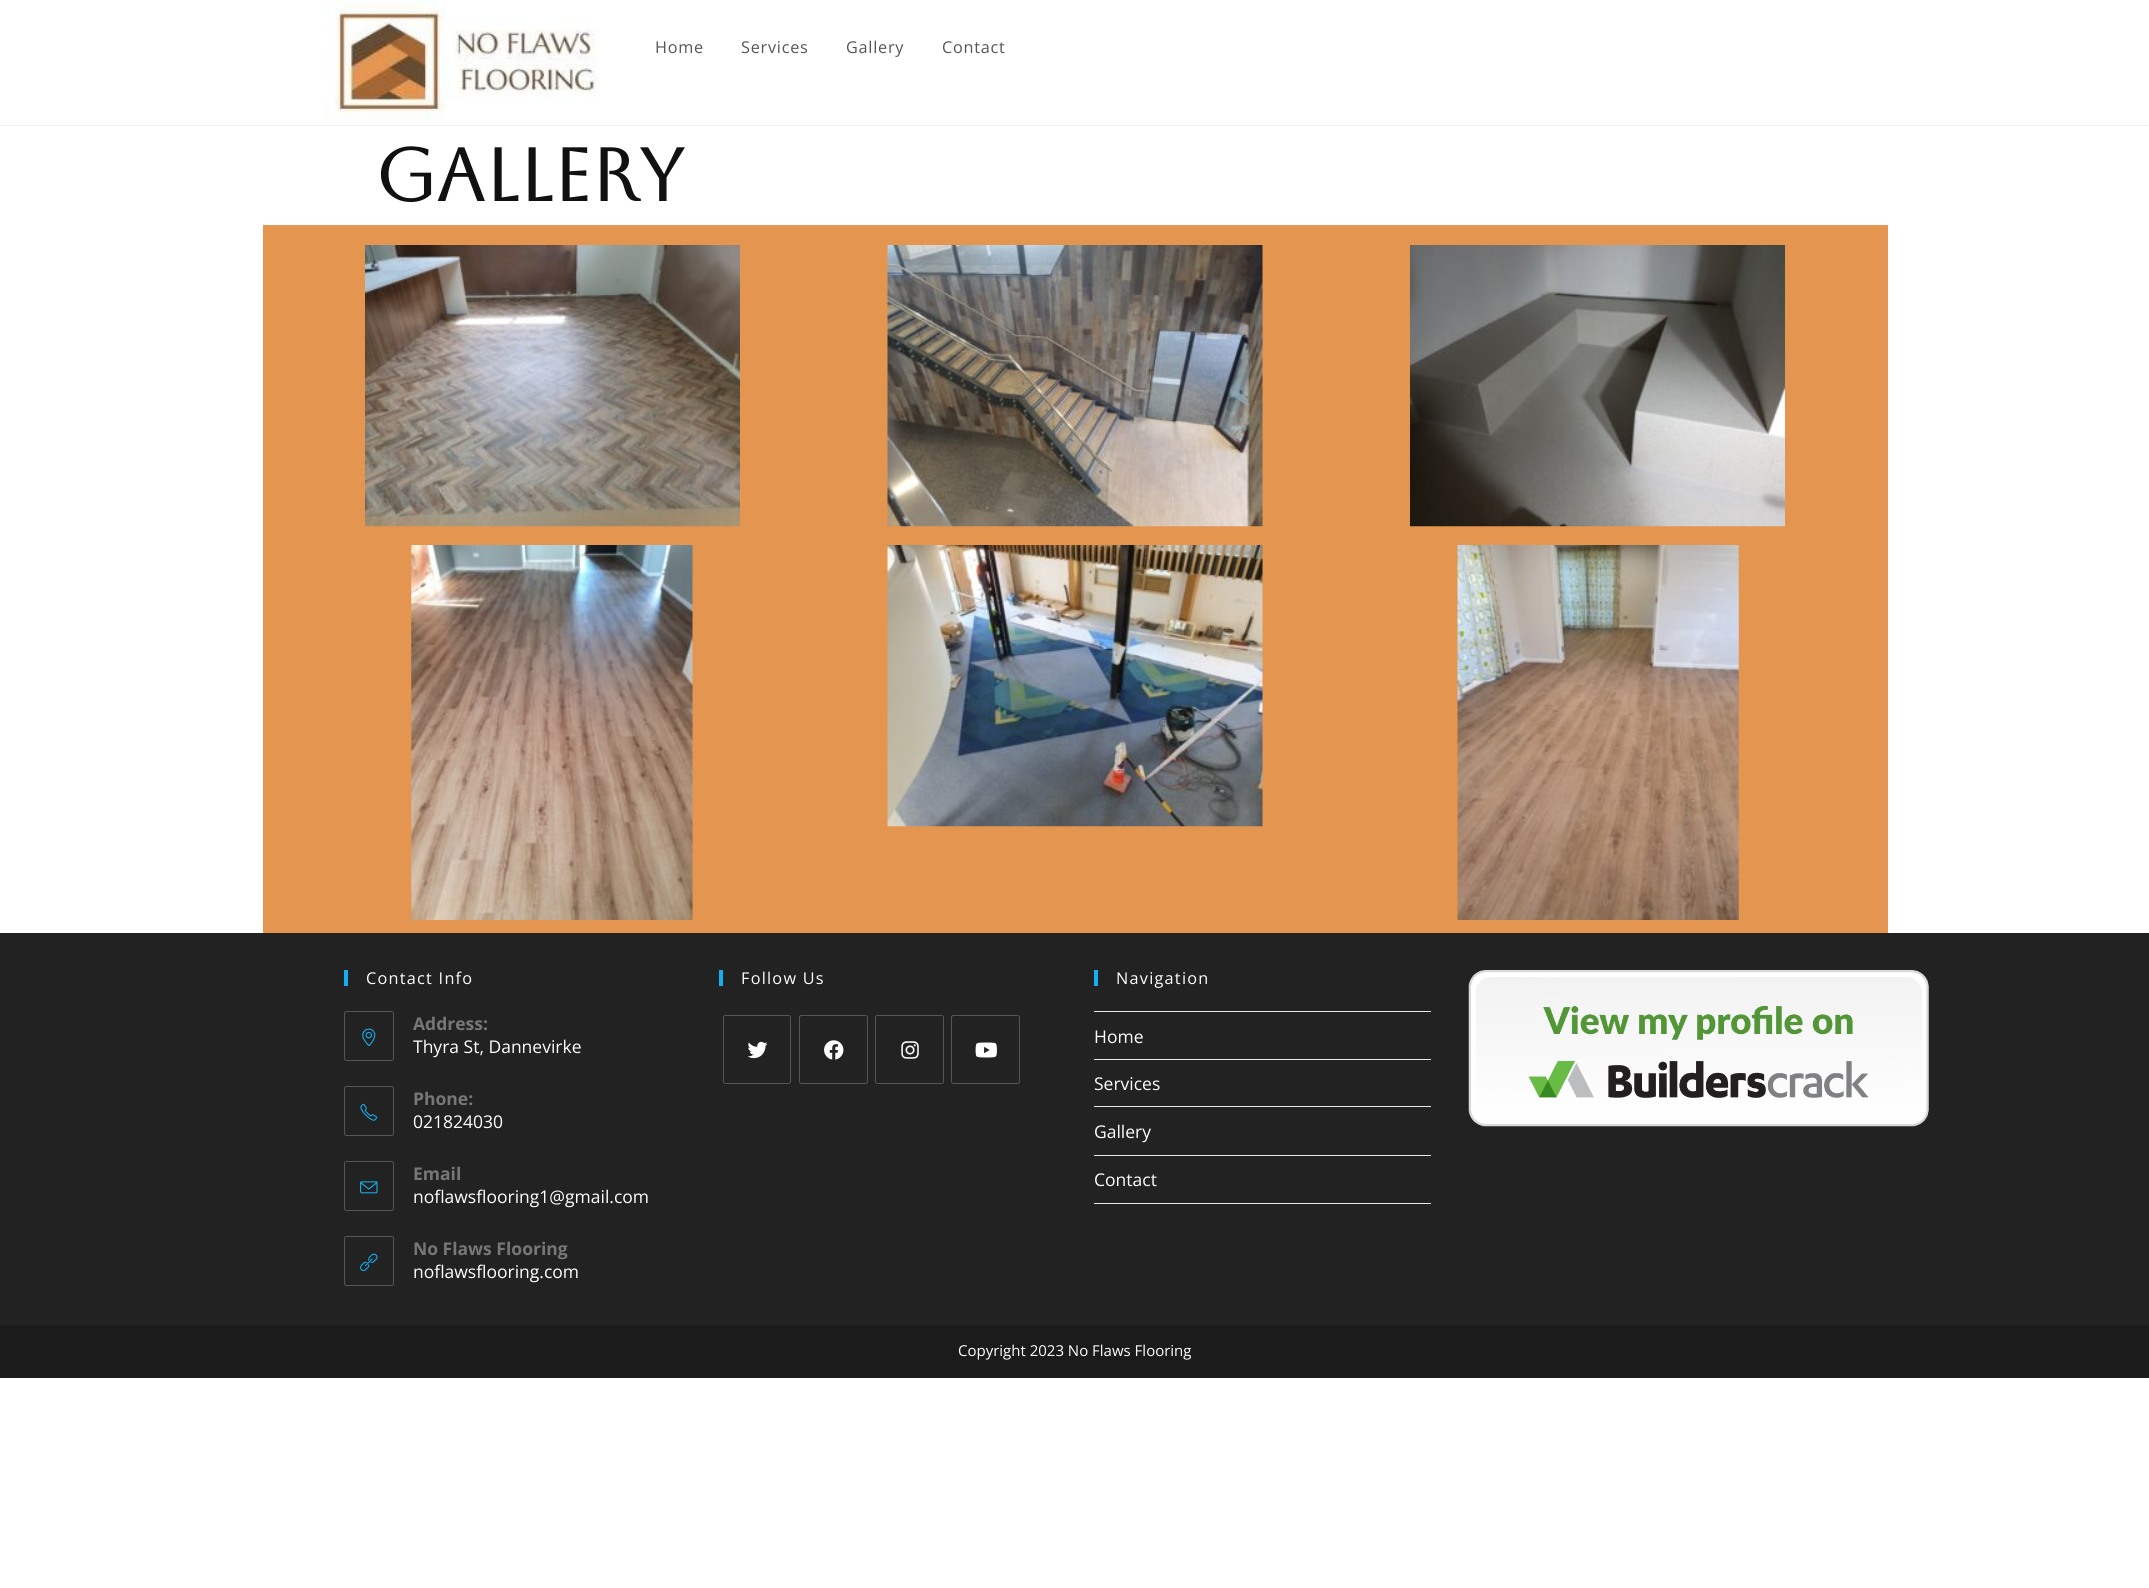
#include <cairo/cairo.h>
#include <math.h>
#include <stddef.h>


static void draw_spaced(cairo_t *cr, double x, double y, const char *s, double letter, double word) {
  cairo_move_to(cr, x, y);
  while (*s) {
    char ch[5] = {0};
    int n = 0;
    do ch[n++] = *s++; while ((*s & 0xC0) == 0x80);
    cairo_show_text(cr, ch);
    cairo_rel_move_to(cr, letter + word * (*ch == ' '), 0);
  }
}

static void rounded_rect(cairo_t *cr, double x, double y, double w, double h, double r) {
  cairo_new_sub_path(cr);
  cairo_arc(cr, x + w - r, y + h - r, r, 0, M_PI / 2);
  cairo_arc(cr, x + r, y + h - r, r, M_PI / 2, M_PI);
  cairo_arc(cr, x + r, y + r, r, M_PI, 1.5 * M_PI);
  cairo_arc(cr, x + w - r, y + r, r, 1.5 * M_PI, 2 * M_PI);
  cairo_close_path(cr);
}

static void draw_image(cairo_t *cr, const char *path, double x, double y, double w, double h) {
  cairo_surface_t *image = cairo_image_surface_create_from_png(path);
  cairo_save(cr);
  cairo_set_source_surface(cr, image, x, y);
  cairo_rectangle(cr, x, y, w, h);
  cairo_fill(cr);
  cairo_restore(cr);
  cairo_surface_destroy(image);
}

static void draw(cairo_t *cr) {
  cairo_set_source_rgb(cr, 1, 1, 1);
  cairo_paint(cr);
  cairo_set_source_rgb(cr, 241 / 255.0, 241 / 255.0, 241 / 255.0);
  cairo_rectangle(cr, 0, 125, 2149, 1);
  cairo_fill(cr);
  draw_image(cr, "images/1.png", 325, 0, 273, 120);
  cairo_set_source_rgb(cr, 228 / 255.0, 149 / 255.0, 80 / 255.0);
  cairo_rectangle(cr, 263, 225, 1625, 708);
  cairo_fill(cr);
  draw_image(cr, "images/2.png", 365, 245, 375, 282);
  draw_image(cr, "images/3.png", 887, 245, 376, 282);
  draw_image(cr, "images/4.png", 1410, 245, 375, 282);
  draw_image(cr, "images/5.png", 411, 545, 282, 375);
  draw_image(cr, "images/6.png", 887, 545, 376, 282);
  draw_image(cr, "images/7.png", 1457, 545, 282, 375);
  cairo_set_source_rgb(cr, 34 / 255.0, 34 / 255.0, 34 / 255.0);
  cairo_rectangle(cr, 0, 933, 2149, 392);
  cairo_fill(cr);
  cairo_set_source_rgb(cr, 19 / 255.0, 175 / 255.0, 240 / 255.0);
  cairo_rectangle(cr, 344, 970, 4, 16);
  cairo_fill(cr);
  rounded_rect(cr, 344.5, 1011.5, 49, 49, 2);
  cairo_set_source_rgb(cr, 85 / 255.0, 85 / 255.0, 85 / 255.0);
  cairo_set_line_width(cr, 1);
  cairo_stroke(cr);
  draw_image(cr, "images/8.png", 362, 1028, 14, 18);
  rounded_rect(cr, 344.5, 1086.5, 49, 49, 2);
  cairo_stroke(cr);
  draw_image(cr, "images/9.png", 360, 1103, 18, 18);
  rounded_rect(cr, 344.5, 1161.5, 49, 49, 2);
  cairo_stroke(cr);
  draw_image(cr, "images/10.png", 360, 1181, 18, 13);
  rounded_rect(cr, 344.5, 1236.5, 49, 49, 2);
  cairo_stroke(cr);
  draw_image(cr, "images/11.png", 360, 1253, 18, 19);
  cairo_set_source_rgb(cr, 19 / 255.0, 175 / 255.0, 240 / 255.0);
  cairo_rectangle(cr, 719, 970, 4, 16);
  cairo_fill(cr);
  rounded_rect(cr, 723.5, 1015.5, 67, 68, 2);
  cairo_set_source_rgb(cr, 85 / 255.0, 85 / 255.0, 85 / 255.0);
  cairo_stroke(cr);
  draw_image(cr, "images/12.png", 747, 1041, 21, 18);
  rounded_rect(cr, 799.5, 1015.5, 68, 68, 2);
  cairo_stroke(cr);
  draw_image(cr, "images/13.png", 824, 1040, 20, 20);
  rounded_rect(cr, 875.5, 1015.5, 68, 68, 2);
  cairo_stroke(cr);
  draw_image(cr, "images/14.png", 901, 1041, 18, 18);
  rounded_rect(cr, 951.5, 1015.5, 68, 68, 2);
  cairo_stroke(cr);
  draw_image(cr, "images/15.png", 975, 1042, 22, 16);
  cairo_set_source_rgb(cr, 19 / 255.0, 175 / 255.0, 240 / 255.0);
  cairo_rectangle(cr, 1094, 970, 4, 16);
  cairo_fill(cr);
  cairo_set_source_rgb(cr, 233 / 255.0, 233 / 255.0, 233 / 255.0);
  cairo_rectangle(cr, 1094, 1011, 337, 1);
  cairo_fill(cr);
  cairo_rectangle(cr, 1094, 1059, 337, 1);
  cairo_fill(cr);
  cairo_rectangle(cr, 1094, 1106, 337, 1);
  cairo_fill(cr);
  cairo_rectangle(cr, 1094, 1155, 337, 1);
  cairo_fill(cr);
  cairo_rectangle(cr, 1094, 1203, 337, 1);
  cairo_fill(cr);
  draw_image(cr, "images/16.png", 1468, 970, 461, 157);
  cairo_set_source_rgb(cr, 27 / 255.0, 27 / 255.0, 27 / 255.0);
  cairo_rectangle(cr, 0, 1325, 2149, 53);
  cairo_fill(cr);
  cairo_select_font_face(cr, "Open Sans", CAIRO_FONT_SLANT_NORMAL, CAIRO_FONT_WEIGHT_NORMAL);
  cairo_set_font_size(cr, 16.25);
  cairo_set_source_rgb(cr, 85 / 255.0, 85 / 255.0, 85 / 255.0);
  draw_spaced(cr, 655, 53, "Home", 0.75, 0);
  draw_spaced(cr, 741, 53, "Services", 0.75, 0);
  draw_spaced(cr, 846, 53, "Gallery", 0.75, 0);
  draw_spaced(cr, 942, 53, "Contact", 0.75, 0);
  cairo_select_font_face(cr, "Aboreto", CAIRO_FONT_SLANT_NORMAL, CAIRO_FONT_WEIGHT_BOLD);
  cairo_set_font_size(cr, 73.75);
  cairo_set_source_rgb(cr, 17 / 255.0, 17 / 255.0, 18 / 255.0);
  cairo_move_to(cr, 375, 201);
  cairo_show_text(cr, "Gallery");
  cairo_select_font_face(cr, "Open Sans", CAIRO_FONT_SLANT_NORMAL, CAIRO_FONT_WEIGHT_NORMAL);
  cairo_set_font_size(cr, 16.25);
  cairo_set_source_rgb(cr, 1, 1, 1);
  draw_spaced(cr, 366, 984, "Contact Info", 1.25, 0);
  cairo_select_font_face(cr, "Open Sans", CAIRO_FONT_SLANT_NORMAL, CAIRO_FONT_WEIGHT_BOLD);
  cairo_set_font_size(cr, 17.5);
  cairo_set_source_rgb(cr, 119 / 255.0, 119 / 255.0, 119 / 255.0);
  cairo_move_to(cr, 413, 1030);
  cairo_show_text(cr, "Address:");
  cairo_select_font_face(cr, "Open Sans", CAIRO_FONT_SLANT_NORMAL, CAIRO_FONT_WEIGHT_NORMAL);
  cairo_set_source_rgb(cr, 1, 1, 1);
  cairo_move_to(cr, 413, 1053);
  cairo_show_text(cr, "Thyra St, Dannevirke");
  cairo_select_font_face(cr, "Open Sans", CAIRO_FONT_SLANT_NORMAL, CAIRO_FONT_WEIGHT_BOLD);
  cairo_set_source_rgb(cr, 119 / 255.0, 119 / 255.0, 119 / 255.0);
  cairo_move_to(cr, 413, 1105);
  cairo_show_text(cr, "Phone:");
  cairo_select_font_face(cr, "Open Sans", CAIRO_FONT_SLANT_NORMAL, CAIRO_FONT_WEIGHT_NORMAL);
  cairo_set_source_rgb(cr, 1, 1, 1);
  cairo_move_to(cr, 413, 1128);
  cairo_show_text(cr, "021824030");
  cairo_select_font_face(cr, "Open Sans", CAIRO_FONT_SLANT_NORMAL, CAIRO_FONT_WEIGHT_BOLD);
  cairo_set_source_rgb(cr, 119 / 255.0, 119 / 255.0, 119 / 255.0);
  cairo_move_to(cr, 413, 1180);
  cairo_show_text(cr, "Email");
  cairo_select_font_face(cr, "Open Sans", CAIRO_FONT_SLANT_NORMAL, CAIRO_FONT_WEIGHT_NORMAL);
  cairo_set_source_rgb(cr, 1, 1, 1);
  cairo_move_to(cr, 413, 1203);
  cairo_show_text(cr, "noflawsflooring1@gmail.com");
  cairo_select_font_face(cr, "Open Sans", CAIRO_FONT_SLANT_NORMAL, CAIRO_FONT_WEIGHT_BOLD);
  cairo_set_source_rgb(cr, 119 / 255.0, 119 / 255.0, 119 / 255.0);
  cairo_move_to(cr, 413, 1255);
  cairo_show_text(cr, "No Flaws Flooring");
  cairo_select_font_face(cr, "Open Sans", CAIRO_FONT_SLANT_NORMAL, CAIRO_FONT_WEIGHT_NORMAL);
  cairo_set_source_rgb(cr, 1, 1, 1);
  cairo_move_to(cr, 413, 1278);
  cairo_show_text(cr, "noflawsflooring.com");
  cairo_set_font_size(cr, 16.25);
  draw_spaced(cr, 741, 984, "Follow Us", 1.25, 0);
  draw_spaced(cr, 1116, 984, "Navigation", 1.25, 0);
  cairo_set_font_size(cr, 17.5);
  cairo_move_to(cr, 1094, 1043);
  cairo_show_text(cr, "Home");
  cairo_move_to(cr, 1094, 1090);
  cairo_show_text(cr, "Services");
  cairo_move_to(cr, 1094, 1138);
  cairo_show_text(cr, "Gallery");
  cairo_move_to(cr, 1094, 1186);
  cairo_show_text(cr, "Contact");
  cairo_set_font_size(cr, 15);
  cairo_move_to(cr, 958, 1356);
  cairo_show_text(cr, "Copyright 2023 No Flaws Flooring");
}

int main(void) {
  cairo_surface_t *surface = cairo_image_surface_create(CAIRO_FORMAT_RGB24, 2149, 1588);
  cairo_t *cr = cairo_create(surface);
  cairo_font_options_t *options = cairo_font_options_create();
  cairo_font_options_set_hint_metrics(options, CAIRO_HINT_METRICS_OFF);
  cairo_font_options_set_hint_style(options, CAIRO_HINT_STYLE_NONE);
  cairo_set_font_options(cr, options);
  cairo_set_miter_limit(cr, 4);
  draw(cr);
  cairo_surface_write_to_png(surface, "out.png");
  cairo_font_options_destroy(options);
  cairo_destroy(cr);
  cairo_surface_destroy(surface);
  return 0;
}
